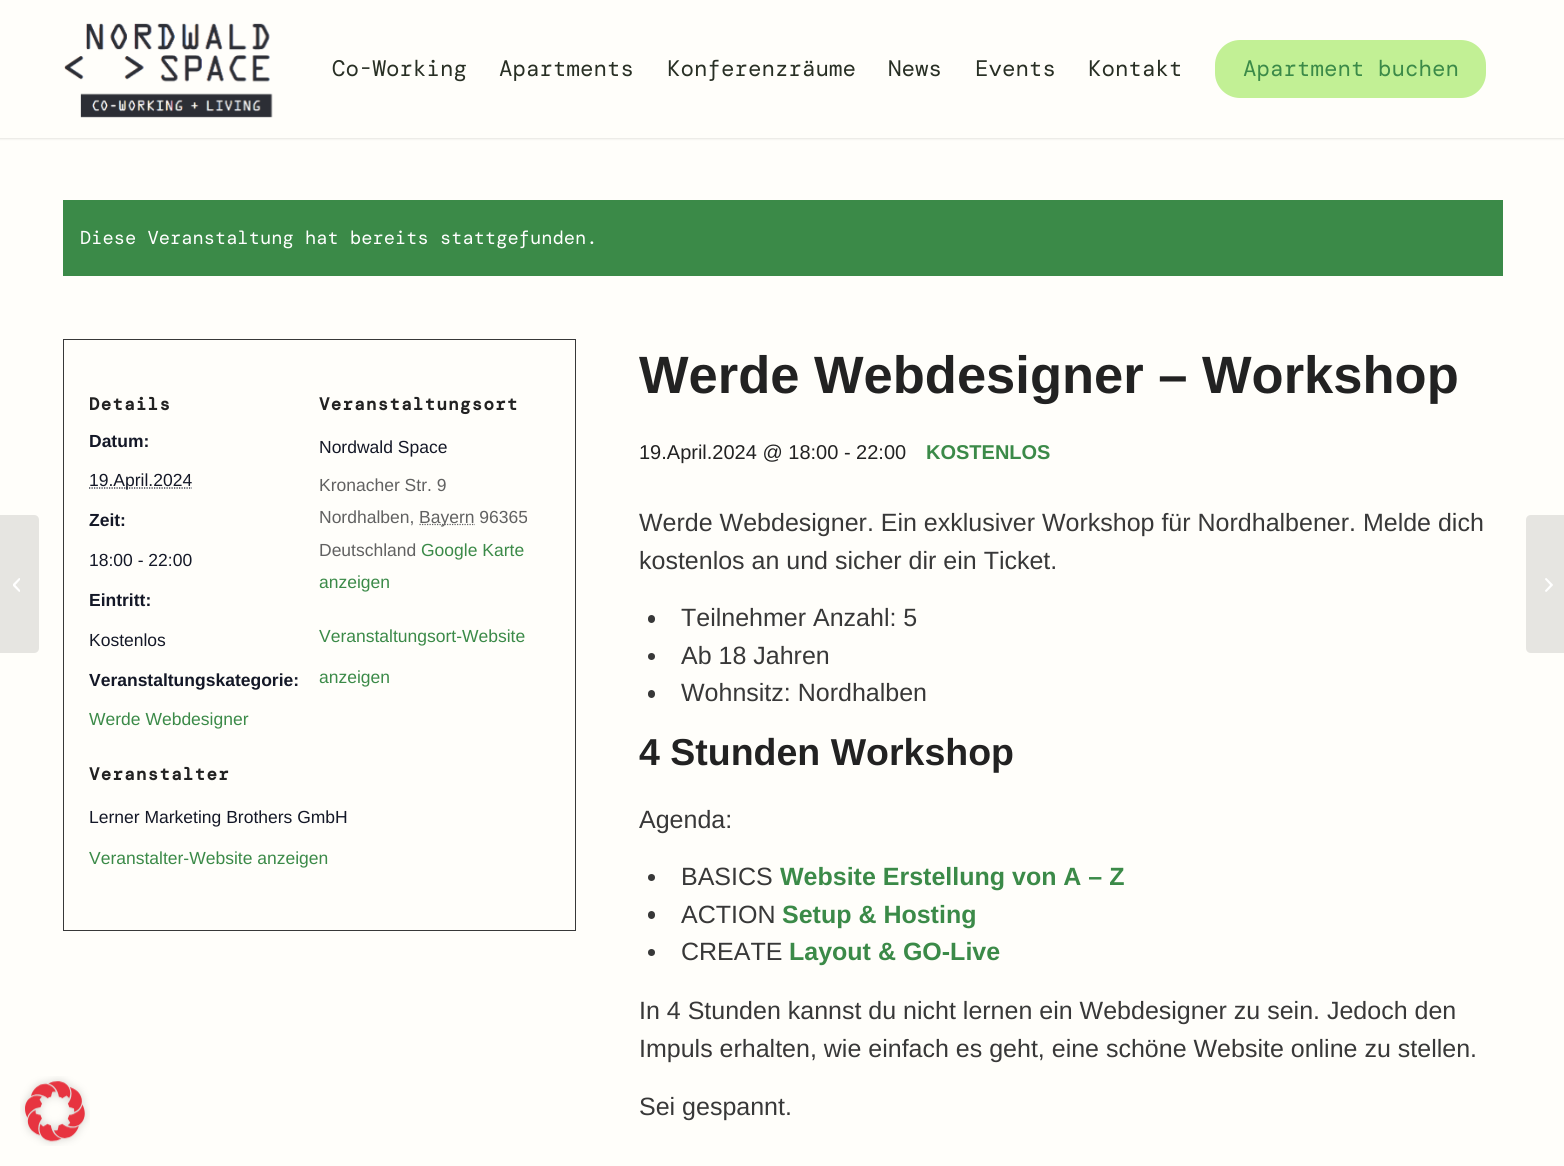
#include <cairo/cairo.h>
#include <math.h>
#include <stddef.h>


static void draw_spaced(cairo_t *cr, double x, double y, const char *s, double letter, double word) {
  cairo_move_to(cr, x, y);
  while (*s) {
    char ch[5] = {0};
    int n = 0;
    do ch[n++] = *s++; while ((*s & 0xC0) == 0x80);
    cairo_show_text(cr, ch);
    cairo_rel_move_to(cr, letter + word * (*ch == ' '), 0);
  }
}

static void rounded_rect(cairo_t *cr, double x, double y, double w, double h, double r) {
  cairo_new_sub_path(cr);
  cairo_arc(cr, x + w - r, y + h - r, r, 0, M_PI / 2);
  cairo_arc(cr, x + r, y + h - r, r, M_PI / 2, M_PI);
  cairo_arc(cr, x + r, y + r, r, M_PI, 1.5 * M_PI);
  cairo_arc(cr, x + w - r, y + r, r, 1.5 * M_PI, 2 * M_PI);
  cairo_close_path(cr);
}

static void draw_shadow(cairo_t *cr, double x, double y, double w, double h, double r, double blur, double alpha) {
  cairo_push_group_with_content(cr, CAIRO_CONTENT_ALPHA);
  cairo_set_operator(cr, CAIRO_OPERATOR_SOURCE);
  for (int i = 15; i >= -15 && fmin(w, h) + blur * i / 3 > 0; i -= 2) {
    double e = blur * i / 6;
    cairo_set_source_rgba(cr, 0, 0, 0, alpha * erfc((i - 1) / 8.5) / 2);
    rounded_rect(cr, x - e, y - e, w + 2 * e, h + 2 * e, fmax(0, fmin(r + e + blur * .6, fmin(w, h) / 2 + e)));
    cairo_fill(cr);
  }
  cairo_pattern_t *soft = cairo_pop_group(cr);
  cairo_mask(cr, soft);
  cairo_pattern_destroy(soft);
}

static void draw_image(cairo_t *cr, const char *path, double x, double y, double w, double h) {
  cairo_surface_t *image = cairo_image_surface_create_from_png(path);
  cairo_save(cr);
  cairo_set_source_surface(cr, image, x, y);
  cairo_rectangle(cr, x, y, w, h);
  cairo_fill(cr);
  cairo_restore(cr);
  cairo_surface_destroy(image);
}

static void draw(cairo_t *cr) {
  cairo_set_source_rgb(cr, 1, 254 / 255.0, 250 / 255.0);
  cairo_paint(cr);
  draw_image(cr, "images/1.png", 20, 1076, 70, 70);
  cairo_set_source_rgb(cr, 0, 0, 0);
  draw_shadow(cr, -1, -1, 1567, 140, 0, 1, 0.1);
  cairo_set_source_rgb(cr, 1, 254 / 255.0, 250 / 255.0);
  cairo_rectangle(cr, 0, 0, 1564, 138);
  cairo_fill(cr);
  draw_image(cr, "images/2.png", 64, 23, 209, 95);
  cairo_set_source_rgb(cr, 194 / 255.0, 240 / 255.0, 149 / 255.0);
  rounded_rect(cr, 1216.5, 41.5, 268, 55, 23.5);
  cairo_fill_preserve(cr);
  cairo_set_line_width(cr, 3);
  cairo_stroke(cr);
  cairo_set_source_rgb(cr, 230 / 255.0, 229 / 255.0, 225 / 255.0);
  cairo_new_path(cr);
  cairo_move_to(cr, 0, 515);
  cairo_line_to(cr, 34, 515);
  cairo_curve_to(cr, 37, 515, 39, 517, 39, 520);
  cairo_line_to(cr, 39, 648);
  cairo_curve_to(cr, 39, 651, 37, 653, 34, 653);
  cairo_line_to(cr, 0, 653);
  cairo_close_path(cr);
  cairo_fill(cr);
  draw_image(cr, "images/3.png", 13, 578, 7, 14);
  cairo_set_source_rgb(cr, 59 / 255.0, 138 / 255.0, 72 / 255.0);
  cairo_rectangle(cr, 63, 200, 1440, 76);
  cairo_fill(cr);
  cairo_rectangle(cr, 63.5, 339.5, 512, 591);
  cairo_set_source_rgb(cr, 56 / 255.0, 56 / 255.0, 56 / 255.0);
  cairo_set_line_width(cr, 1);
  cairo_stroke(cr);
  cairo_new_path(cr);
  cairo_move_to(cr, 89, 488);
  cairo_line_to(cr, 192, 488);
  cairo_set_source_rgb(cr, 20 / 255.0, 24 / 255.0, 39 / 255.0);
  cairo_set_line_width(cr, 1.2);
  cairo_set_dash(cr, (double[]){1.25, 1.25}, 2, 0);
  cairo_stroke(cr);
  cairo_new_path(cr);
  cairo_move_to(cr, 419.5, 524.5);
  cairo_line_to(cr, 475, 524.5);
  cairo_set_source_rgb(cr, 97 / 255.0, 97 / 255.0, 97 / 255.0);
  cairo_stroke(cr);
  cairo_set_source_rgb(cr, 56 / 255.0, 56 / 255.0, 56 / 255.0);
  rounded_rect(cr, 648, 615, 7, 8, 3.5);
  cairo_fill(cr);
  cairo_arc(cr, 651.5, 656.5, 3.5, 0, 2 * M_PI);
  cairo_fill(cr);
  rounded_rect(cr, 648, 690, 7, 8, 3.5);
  cairo_fill(cr);
  cairo_arc(cr, 651.5, 877.5, 3.5, 0, 2 * M_PI);
  cairo_fill(cr);
  rounded_rect(cr, 648, 911, 7, 8, 3.5);
  cairo_fill(cr);
  cairo_arc(cr, 651.5, 952.5, 3.5, 0, 2 * M_PI);
  cairo_fill(cr);
  cairo_set_source_rgb(cr, 230 / 255.0, 229 / 255.0, 225 / 255.0);
  cairo_new_path(cr);
  cairo_move_to(cr, 1531, 515);
  cairo_line_to(cr, 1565, 515);
  cairo_line_to(cr, 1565, 653);
  cairo_line_to(cr, 1531, 653);
  cairo_curve_to(cr, 1528, 653, 1526, 651, 1526, 648);
  cairo_line_to(cr, 1526, 520);
  cairo_curve_to(cr, 1526, 517, 1528, 515, 1531, 515);
  cairo_close_path(cr);
  cairo_fill(cr);
  draw_image(cr, "images/4.png", 1545, 578, 8, 14);
  cairo_select_font_face(cr, "DM Mono", CAIRO_FONT_SLANT_NORMAL, CAIRO_FONT_WEIGHT_NORMAL);
  cairo_set_font_size(cr, 22.5);
  cairo_set_source_rgb(cr, 40 / 255.0, 47 / 255.0, 36 / 255.0);
  cairo_move_to(cr, 332, 76);
  cairo_show_text(cr, "Co-Working");
  cairo_move_to(cr, 499, 76);
  cairo_show_text(cr, "Apartments");
  cairo_move_to(cr, 667, 76);
  cairo_show_text(cr, "Konferenzräume");
  cairo_move_to(cr, 888, 76);
  cairo_show_text(cr, "News");
  cairo_move_to(cr, 975, 76);
  cairo_show_text(cr, "Events");
  cairo_move_to(cr, 1088, 76);
  cairo_show_text(cr, "Kontakt");
  cairo_set_source_rgb(cr, 59 / 255.0, 138 / 255.0, 72 / 255.0);
  cairo_move_to(cr, 1243, 76);
  cairo_show_text(cr, "Apartment buchen");
  cairo_set_font_size(cr, 18.75);
  cairo_set_source_rgb(cr, 1, 1, 1);
  cairo_move_to(cr, 80, 244);
  cairo_show_text(cr, "Diese Veranstaltung hat bereits stattgefunden.");
  cairo_select_font_face(cr, "DM Mono", CAIRO_FONT_SLANT_NORMAL, CAIRO_FONT_WEIGHT_BOLD);
  cairo_set_font_size(cr, 17.5);
  cairo_set_source_rgb(cr, 34 / 255.0, 34 / 255.0, 34 / 255.0);
  draw_spaced(cr, 89, 410, "Details", 1.25, 0);
  cairo_select_font_face(cr, "Liberation Sans", CAIRO_FONT_SLANT_NORMAL, CAIRO_FONT_WEIGHT_BOLD);
  cairo_set_source_rgb(cr, 20 / 255.0, 24 / 255.0, 39 / 255.0);
  cairo_move_to(cr, 89, 447);
  cairo_show_text(cr, "Datum:");
  cairo_select_font_face(cr, "Liberation Sans", CAIRO_FONT_SLANT_NORMAL, CAIRO_FONT_WEIGHT_NORMAL);
  cairo_move_to(cr, 89, 486);
  cairo_show_text(cr, "19.April.2024");
  cairo_select_font_face(cr, "Liberation Sans", CAIRO_FONT_SLANT_NORMAL, CAIRO_FONT_WEIGHT_BOLD);
  cairo_move_to(cr, 89, 526);
  cairo_show_text(cr, "Zeit:");
  cairo_select_font_face(cr, "Liberation Sans", CAIRO_FONT_SLANT_NORMAL, CAIRO_FONT_WEIGHT_NORMAL);
  cairo_move_to(cr, 89, 566);
  cairo_show_text(cr, "18:00 - 22:00");
  cairo_select_font_face(cr, "Liberation Sans", CAIRO_FONT_SLANT_NORMAL, CAIRO_FONT_WEIGHT_BOLD);
  cairo_move_to(cr, 89, 606);
  cairo_show_text(cr, "Eintritt:");
  cairo_select_font_face(cr, "Liberation Sans", CAIRO_FONT_SLANT_NORMAL, CAIRO_FONT_WEIGHT_NORMAL);
  cairo_move_to(cr, 89, 646);
  cairo_show_text(cr, "Kostenlos");
  cairo_select_font_face(cr, "Liberation Sans", CAIRO_FONT_SLANT_NORMAL, CAIRO_FONT_WEIGHT_BOLD);
  cairo_move_to(cr, 89, 686);
  cairo_show_text(cr, "Veranstaltungskategorie:");
  cairo_select_font_face(cr, "Liberation Sans", CAIRO_FONT_SLANT_NORMAL, CAIRO_FONT_WEIGHT_NORMAL);
  cairo_set_source_rgb(cr, 59 / 255.0, 138 / 255.0, 72 / 255.0);
  cairo_move_to(cr, 89, 725);
  cairo_show_text(cr, "Werde Webdesigner");
  cairo_select_font_face(cr, "DM Mono", CAIRO_FONT_SLANT_NORMAL, CAIRO_FONT_WEIGHT_BOLD);
  cairo_set_source_rgb(cr, 34 / 255.0, 34 / 255.0, 34 / 255.0);
  draw_spaced(cr, 319, 410, "Veranstaltungsort", 1.25, 0);
  cairo_select_font_face(cr, "Liberation Sans", CAIRO_FONT_SLANT_NORMAL, CAIRO_FONT_WEIGHT_NORMAL);
  cairo_set_source_rgb(cr, 20 / 255.0, 24 / 255.0, 39 / 255.0);
  cairo_move_to(cr, 319, 453);
  cairo_show_text(cr, "Nordwald Space");
  cairo_set_source_rgb(cr, 97 / 255.0, 97 / 255.0, 97 / 255.0);
  cairo_move_to(cr, 319, 491);
  cairo_show_text(cr, "Kronacher Str. 9");
  cairo_move_to(cr, 319, 523);
  cairo_show_text(cr, "Nordhalben,");
  cairo_move_to(cr, 419, 523);
  cairo_show_text(cr, "Bayern 96365");
  cairo_move_to(cr, 319, 556);
  cairo_show_text(cr, "Deutschland");
  cairo_set_source_rgb(cr, 59 / 255.0, 138 / 255.0, 72 / 255.0);
  cairo_move_to(cr, 421, 556);
  cairo_show_text(cr, "Google Karte");
  cairo_move_to(cr, 319, 588);
  cairo_show_text(cr, "anzeigen");
  cairo_move_to(cr, 319, 642);
  cairo_show_text(cr, "Veranstaltungsort-Website");
  cairo_move_to(cr, 319, 683);
  cairo_show_text(cr, "anzeigen");
  cairo_select_font_face(cr, "DM Mono", CAIRO_FONT_SLANT_NORMAL, CAIRO_FONT_WEIGHT_BOLD);
  cairo_set_source_rgb(cr, 34 / 255.0, 34 / 255.0, 34 / 255.0);
  draw_spaced(cr, 89, 780, "Veranstalter", 1.25, 0);
  cairo_select_font_face(cr, "Liberation Sans", CAIRO_FONT_SLANT_NORMAL, CAIRO_FONT_WEIGHT_NORMAL);
  cairo_set_source_rgb(cr, 20 / 255.0, 24 / 255.0, 39 / 255.0);
  cairo_move_to(cr, 89, 823);
  cairo_show_text(cr, "Lerner Marketing Brothers GmbH");
  cairo_set_source_rgb(cr, 59 / 255.0, 138 / 255.0, 72 / 255.0);
  cairo_move_to(cr, 89, 864);
  cairo_show_text(cr, "Veranstalter-Website anzeigen");
  cairo_select_font_face(cr, "Liberation Sans", CAIRO_FONT_SLANT_NORMAL, CAIRO_FONT_WEIGHT_BOLD);
  cairo_set_font_size(cr, 52.5);
  cairo_set_source_rgb(cr, 34 / 255.0, 34 / 255.0, 34 / 255.0);
  cairo_move_to(cr, 639, 393);
  cairo_show_text(cr, "Werde Webdesigner – Workshop");
  cairo_select_font_face(cr, "Liberation Sans", CAIRO_FONT_SLANT_NORMAL, CAIRO_FONT_WEIGHT_NORMAL);
  cairo_set_font_size(cr, 20);
  cairo_move_to(cr, 639, 459);
  cairo_show_text(cr, "19.April.2024 @ 18:00 - 22:00");
  cairo_select_font_face(cr, "Liberation Sans", CAIRO_FONT_SLANT_NORMAL, CAIRO_FONT_WEIGHT_BOLD);
  cairo_set_source_rgb(cr, 59 / 255.0, 138 / 255.0, 72 / 255.0);
  cairo_move_to(cr, 926, 459);
  cairo_show_text(cr, "KOSTENLOS");
  cairo_select_font_face(cr, "Liberation Sans", CAIRO_FONT_SLANT_NORMAL, CAIRO_FONT_WEIGHT_NORMAL);
  cairo_set_font_size(cr, 25);
  cairo_set_source_rgb(cr, 56 / 255.0, 56 / 255.0, 56 / 255.0);
  cairo_move_to(cr, 639, 531);
  cairo_show_text(cr, "Werde Webdesigner. Ein exklusiver Workshop für Nordhalbener. Melde dich");
  cairo_move_to(cr, 639, 569);
  cairo_show_text(cr, "kostenlos an und sicher dir ein Ticket.");
  cairo_move_to(cr, 681, 626);
  cairo_show_text(cr, "Teilnehmer Anzahl: 5");
  cairo_move_to(cr, 681, 664);
  cairo_show_text(cr, "Ab 18 Jahren");
  cairo_move_to(cr, 681, 701);
  cairo_show_text(cr, "Wohnsitz: Nordhalben");
  cairo_select_font_face(cr, "Liberation Sans", CAIRO_FONT_SLANT_NORMAL, CAIRO_FONT_WEIGHT_BOLD);
  cairo_set_font_size(cr, 37.5);
  cairo_set_source_rgb(cr, 34 / 255.0, 34 / 255.0, 34 / 255.0);
  cairo_move_to(cr, 639, 765);
  cairo_show_text(cr, "4 Stunden Workshop");
  cairo_select_font_face(cr, "Liberation Sans", CAIRO_FONT_SLANT_NORMAL, CAIRO_FONT_WEIGHT_NORMAL);
  cairo_set_font_size(cr, 25);
  cairo_set_source_rgb(cr, 56 / 255.0, 56 / 255.0, 56 / 255.0);
  cairo_move_to(cr, 639, 828);
  cairo_show_text(cr, "Agenda:");
  cairo_move_to(cr, 681, 885);
  cairo_show_text(cr, "BASICS");
  cairo_select_font_face(cr, "Liberation Sans", CAIRO_FONT_SLANT_NORMAL, CAIRO_FONT_WEIGHT_BOLD);
  cairo_set_source_rgb(cr, 59 / 255.0, 138 / 255.0, 72 / 255.0);
  cairo_move_to(cr, 780, 885);
  cairo_show_text(cr, "Website Erstellung von A – Z");
  cairo_select_font_face(cr, "Liberation Sans", CAIRO_FONT_SLANT_NORMAL, CAIRO_FONT_WEIGHT_NORMAL);
  cairo_set_source_rgb(cr, 56 / 255.0, 56 / 255.0, 56 / 255.0);
  cairo_move_to(cr, 681, 923);
  cairo_show_text(cr, "ACTION");
  cairo_select_font_face(cr, "Liberation Sans", CAIRO_FONT_SLANT_NORMAL, CAIRO_FONT_WEIGHT_BOLD);
  cairo_set_source_rgb(cr, 59 / 255.0, 138 / 255.0, 72 / 255.0);
  cairo_move_to(cr, 782, 923);
  cairo_show_text(cr, "Setup & Hosting");
  cairo_select_font_face(cr, "Liberation Sans", CAIRO_FONT_SLANT_NORMAL, CAIRO_FONT_WEIGHT_NORMAL);
  cairo_set_source_rgb(cr, 56 / 255.0, 56 / 255.0, 56 / 255.0);
  cairo_move_to(cr, 681, 960);
  cairo_show_text(cr, "CREATE");
  cairo_select_font_face(cr, "Liberation Sans", CAIRO_FONT_SLANT_NORMAL, CAIRO_FONT_WEIGHT_BOLD);
  cairo_set_source_rgb(cr, 59 / 255.0, 138 / 255.0, 72 / 255.0);
  cairo_move_to(cr, 789, 960);
  cairo_show_text(cr, "Layout & GO-Live");
  cairo_select_font_face(cr, "Liberation Sans", CAIRO_FONT_SLANT_NORMAL, CAIRO_FONT_WEIGHT_NORMAL);
  cairo_set_source_rgb(cr, 56 / 255.0, 56 / 255.0, 56 / 255.0);
  cairo_move_to(cr, 639, 1019);
  cairo_show_text(cr, "In 4 Stunden kannst du nicht lernen ein Webdesigner zu sein. Jedoch den");
  cairo_move_to(cr, 639, 1057);
  cairo_show_text(cr, "Impuls erhalten, wie einfach es geht, eine schöne Website online zu stellen.");
  cairo_move_to(cr, 639, 1115);
  cairo_show_text(cr, "Sei gespannt.");
}

int main(void) {
  cairo_surface_t *surface = cairo_image_surface_create(CAIRO_FORMAT_RGB24, 1564, 1166);
  cairo_t *cr = cairo_create(surface);
  cairo_font_options_t *options = cairo_font_options_create();
  cairo_font_options_set_hint_metrics(options, CAIRO_HINT_METRICS_OFF);
  cairo_font_options_set_hint_style(options, CAIRO_HINT_STYLE_NONE);
  cairo_set_font_options(cr, options);
  cairo_set_miter_limit(cr, 4);
  draw(cr);
  cairo_surface_write_to_png(surface, "out.png");
  cairo_font_options_destroy(options);
  cairo_destroy(cr);
  cairo_surface_destroy(surface);
  return 0;
}
